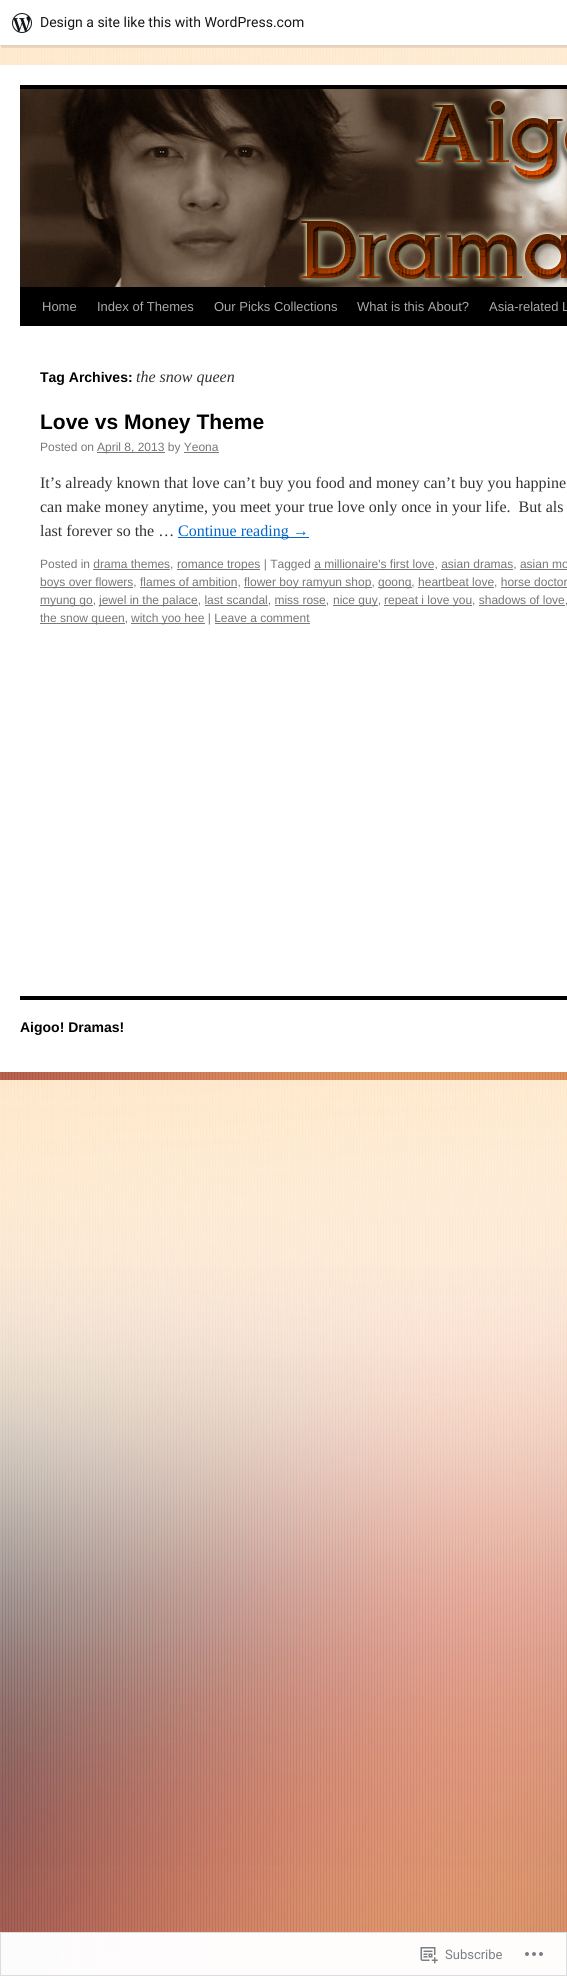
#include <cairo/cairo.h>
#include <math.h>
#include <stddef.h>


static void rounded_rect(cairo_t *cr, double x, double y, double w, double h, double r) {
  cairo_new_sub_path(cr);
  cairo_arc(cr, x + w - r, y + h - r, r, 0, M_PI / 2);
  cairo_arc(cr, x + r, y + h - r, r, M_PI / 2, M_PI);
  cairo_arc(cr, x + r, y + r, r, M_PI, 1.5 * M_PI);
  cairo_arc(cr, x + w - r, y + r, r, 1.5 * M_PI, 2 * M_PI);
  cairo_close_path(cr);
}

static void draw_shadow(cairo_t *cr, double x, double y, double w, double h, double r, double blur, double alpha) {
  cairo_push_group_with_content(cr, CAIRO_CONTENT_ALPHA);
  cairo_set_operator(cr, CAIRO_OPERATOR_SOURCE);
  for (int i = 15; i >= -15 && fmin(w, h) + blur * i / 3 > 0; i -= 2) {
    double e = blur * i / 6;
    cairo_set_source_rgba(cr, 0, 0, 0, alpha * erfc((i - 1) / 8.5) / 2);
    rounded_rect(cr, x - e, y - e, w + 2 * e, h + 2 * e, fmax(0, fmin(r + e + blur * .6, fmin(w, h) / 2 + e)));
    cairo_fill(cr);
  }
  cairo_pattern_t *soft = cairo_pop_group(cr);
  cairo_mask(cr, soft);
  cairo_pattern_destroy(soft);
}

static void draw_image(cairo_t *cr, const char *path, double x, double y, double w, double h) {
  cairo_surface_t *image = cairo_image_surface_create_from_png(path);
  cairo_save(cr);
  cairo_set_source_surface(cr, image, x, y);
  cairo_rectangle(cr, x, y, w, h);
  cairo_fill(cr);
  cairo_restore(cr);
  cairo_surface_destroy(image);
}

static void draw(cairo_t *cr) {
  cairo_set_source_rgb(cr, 1, 1, 1);
  cairo_paint(cr);
  draw_image(cr, "images/1.png", 0, 45, 567, 1930);
  cairo_set_source_rgb(cr, 0, 0, 0);
  draw_shadow(cr, 0, 1, 567, 45, 0, 1, 0.05);
  cairo_set_source_rgba(cr, 0, 0, 0, 0.08);
  cairo_new_path(cr);
  cairo_move_to(cr, 1, 45);
  cairo_line_to(cr, 1, 48);
  cairo_line_to(cr, 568, 48);
  cairo_line_to(cr, 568, 3);
  cairo_line_to(cr, 567, 3);
  cairo_line_to(cr, 567, 45);
  cairo_close_path(cr);
  cairo_fill(cr);
  cairo_set_source_rgb(cr, 1, 1, 1);
  cairo_rectangle(cr, 0, 0, 567, 45);
  cairo_fill(cr);
  draw_image(cr, "images/2.png", 12, 13, 20, 20);
  cairo_rectangle(cr, 0, 65, 567, 1007);
  cairo_fill(cr);
  cairo_set_source_rgb(cr, 0, 0, 0);
  cairo_rectangle(cr, 20, 85, 547, 4);
  cairo_fill(cr);
  cairo_rectangle(cr, 20, 287, 547, 39);
  cairo_fill(cr);
  draw_image(cr, "images/3.png", 20, 89, 547, 198);
  cairo_set_source_rgb(cr, 119 / 255.0, 119 / 255.0, 119 / 255.0);
  cairo_rectangle(cr, 97, 452, 68, 1);
  cairo_fill(cr);
  cairo_rectangle(cr, 184, 452, 35, 1);
  cairo_fill(cr);
  cairo_set_source_rgb(cr, 0, 102 / 255.0, 204 / 255.0);
  cairo_rectangle(cr, 178, 537, 131, 1);
  cairo_fill(cr);
  cairo_set_source_rgb(cr, 119 / 255.0, 119 / 255.0, 119 / 255.0);
  cairo_rectangle(cr, 93, 569, 77, 1);
  cairo_fill(cr);
  cairo_rectangle(cr, 177, 569, 83, 1);
  cairo_fill(cr);
  cairo_rectangle(cr, 40, 587, 93, 1);
  cairo_fill(cr);
  cairo_rectangle(cr, 140, 587, 97, 1);
  cairo_fill(cr);
  cairo_rectangle(cr, 314, 569, 120, 1);
  cairo_fill(cr);
  cairo_rectangle(cr, 244, 587, 128, 1);
  cairo_fill(cr);
  cairo_rectangle(cr, 441, 569, 72, 1);
  cairo_fill(cr);
  cairo_rectangle(cr, 520, 569, 47, 1);
  cairo_fill(cr);
  cairo_rectangle(cr, 378, 587, 34, 1);
  cairo_fill(cr);
  cairo_rectangle(cr, 418, 587, 76, 1);
  cairo_fill(cr);
  cairo_rectangle(cr, 501, 587, 66, 1);
  cairo_fill(cr);
  cairo_rectangle(cr, 40, 605, 53, 1);
  cairo_fill(cr);
  cairo_rectangle(cr, 99, 605, 99, 1);
  cairo_fill(cr);
  cairo_rectangle(cr, 205, 605, 63, 1);
  cairo_fill(cr);
  cairo_rectangle(cr, 275, 605, 51, 1);
  cairo_fill(cr);
  cairo_rectangle(cr, 333, 605, 45, 1);
  cairo_fill(cr);
  cairo_rectangle(cr, 384, 605, 88, 1);
  cairo_fill(cr);
  cairo_rectangle(cr, 479, 605, 86, 1);
  cairo_fill(cr);
  cairo_rectangle(cr, 40, 623, 85, 1);
  cairo_fill(cr);
  cairo_rectangle(cr, 131, 623, 74, 1);
  cairo_fill(cr);
  cairo_rectangle(cr, 215, 623, 95, 1);
  cairo_fill(cr);
  cairo_set_source_rgb(cr, 0, 0, 0);
  cairo_rectangle(cr, 20, 996, 547, 4);
  cairo_fill(cr);
  cairo_set_source_rgba(cr, 1, 1, 1, 0.98);
  cairo_rectangle(cr, 0.5, 1932.5, 566, 43);
  cairo_fill_preserve(cr);
  cairo_set_source_rgb(cr, 221 / 255.0, 221 / 255.0, 223 / 255.0);
  cairo_set_line_width(cr, 1);
  cairo_stroke(cr);
  draw_image(cr, "images/4.png", 420, 1947, 18, 17);
  draw_image(cr, "images/5.png", 525, 1952, 18, 4);
  cairo_select_font_face(cr, "Roboto", CAIRO_FONT_SLANT_NORMAL, CAIRO_FONT_WEIGHT_NORMAL);
  cairo_set_font_size(cr, 14);
  cairo_set_source_rgb(cr, 23 / 255.0, 23 / 255.0, 23 / 255.0);
  cairo_move_to(cr, 40, 27);
  cairo_show_text(cr, "Design a site like this with WordPress.com");
  cairo_select_font_face(cr, "Liberation Sans", CAIRO_FONT_SLANT_NORMAL, CAIRO_FONT_WEIGHT_NORMAL);
  cairo_set_font_size(cr, 13);
  cairo_set_source_rgb(cr, 170 / 255.0, 170 / 255.0, 170 / 255.0);
  cairo_move_to(cr, 42, 311);
  cairo_show_text(cr, "Home");
  cairo_move_to(cr, 97, 311);
  cairo_show_text(cr, "Index of Themes");
  cairo_move_to(cr, 214, 311);
  cairo_show_text(cr, "Our Picks Collections");
  cairo_move_to(cr, 357, 311);
  cairo_show_text(cr, "What is this About?");
  cairo_move_to(cr, 489, 311);
  cairo_show_text(cr, "Asia-related L");
  cairo_select_font_face(cr, "Liberation Sans", CAIRO_FONT_SLANT_NORMAL, CAIRO_FONT_WEIGHT_BOLD);
  cairo_set_font_size(cr, 14);
  cairo_set_source_rgb(cr, 0, 0, 0);
  cairo_move_to(cr, 40, 382);
  cairo_show_text(cr, "Tag Archives:");
  cairo_select_font_face(cr, "Liberation Serif", CAIRO_FONT_SLANT_ITALIC, CAIRO_FONT_WEIGHT_NORMAL);
  cairo_set_font_size(cr, 16);
  cairo_set_source_rgb(cr, 51 / 255.0, 51 / 255.0, 51 / 255.0);
  cairo_move_to(cr, 136, 382);
  cairo_show_text(cr, "the snow queen");
  cairo_select_font_face(cr, "Liberation Sans", CAIRO_FONT_SLANT_NORMAL, CAIRO_FONT_WEIGHT_BOLD);
  cairo_set_font_size(cr, 21);
  cairo_set_source_rgb(cr, 0, 0, 0);
  cairo_move_to(cr, 40, 429);
  cairo_show_text(cr, "Love vs Money Theme");
  cairo_select_font_face(cr, "Liberation Sans", CAIRO_FONT_SLANT_NORMAL, CAIRO_FONT_WEIGHT_NORMAL);
  cairo_set_font_size(cr, 12);
  cairo_set_source_rgb(cr, 119 / 255.0, 119 / 255.0, 119 / 255.0);
  cairo_move_to(cr, 40, 451);
  cairo_show_text(cr, "Posted on");
  cairo_move_to(cr, 97, 451);
  cairo_show_text(cr, "April 8, 2013 by Yeona");
  cairo_select_font_face(cr, "Liberation Serif", CAIRO_FONT_SLANT_NORMAL, CAIRO_FONT_WEIGHT_NORMAL);
  cairo_set_font_size(cr, 16);
  cairo_set_source_rgb(cr, 51 / 255.0, 51 / 255.0, 51 / 255.0);
  cairo_move_to(cr, 40, 488);
  cairo_show_text(cr, "It’s already known that love can’t buy you food and money can’t buy you happine");
  cairo_move_to(cr, 40, 512);
  cairo_show_text(cr, "can make money anytime, you meet your true love only once in your life.  But als");
  cairo_move_to(cr, 40, 536);
  cairo_show_text(cr, "last forever so the …");
  cairo_set_source_rgb(cr, 0, 102 / 255.0, 204 / 255.0);
  cairo_move_to(cr, 178, 536);
  cairo_show_text(cr, "Continue reading →");
  cairo_select_font_face(cr, "Liberation Sans", CAIRO_FONT_SLANT_NORMAL, CAIRO_FONT_WEIGHT_NORMAL);
  cairo_set_font_size(cr, 12);
  cairo_set_source_rgb(cr, 119 / 255.0, 119 / 255.0, 119 / 255.0);
  cairo_move_to(cr, 40, 568);
  cairo_show_text(cr, "Posted in drama themes,");
  cairo_move_to(cr, 177, 568);
  cairo_show_text(cr, "romance tropes | Tagged a millionaire's first love, asian dramas, asian mo");
  cairo_move_to(cr, 40, 586);
  cairo_show_text(cr, "boys over flowers, flames of ambition,");
  cairo_move_to(cr, 244, 586);
  cairo_show_text(cr, "flower boy ramyun shop,");
  cairo_move_to(cr, 378, 586);
  cairo_show_text(cr, "goong, heartbeat love, horse doctor");
  cairo_move_to(cr, 40, 604);
  cairo_show_text(cr, "myung go,");
  cairo_move_to(cr, 99, 604);
  cairo_show_text(cr, "jewel in the palace, last scandal, miss rose,");
  cairo_move_to(cr, 333, 604);
  cairo_show_text(cr, "nice guy,");
  cairo_move_to(cr, 384, 604);
  cairo_show_text(cr, "repeat i love you, shadows of love,");
  cairo_move_to(cr, 40, 622);
  cairo_show_text(cr, "the snow queen,");
  cairo_move_to(cr, 131, 622);
  cairo_show_text(cr, "witch yoo hee | Leave a comment");
  cairo_select_font_face(cr, "Liberation Sans", CAIRO_FONT_SLANT_NORMAL, CAIRO_FONT_WEIGHT_BOLD);
  cairo_set_font_size(cr, 14);
  cairo_set_source_rgb(cr, 0, 0, 0);
  cairo_move_to(cr, 20, 1032);
  cairo_show_text(cr, "Aigoo! Dramas!");
  cairo_select_font_face(cr, "Roboto", CAIRO_FONT_SLANT_NORMAL, CAIRO_FONT_WEIGHT_NORMAL);
  cairo_set_font_size(cr, 13);
  cairo_set_source_rgb(cr, 123 / 255.0, 127 / 255.0, 132 / 255.0);
  cairo_move_to(cr, 445, 1959);
  cairo_show_text(cr, "Subscribe");
}

int main(void) {
  cairo_surface_t *surface = cairo_image_surface_create(CAIRO_FORMAT_RGB24, 567, 1976);
  cairo_t *cr = cairo_create(surface);
  cairo_font_options_t *options = cairo_font_options_create();
  cairo_font_options_set_hint_metrics(options, CAIRO_HINT_METRICS_OFF);
  cairo_font_options_set_hint_style(options, CAIRO_HINT_STYLE_NONE);
  cairo_set_font_options(cr, options);
  cairo_set_miter_limit(cr, 4);
  draw(cr);
  cairo_surface_write_to_png(surface, "out.png");
  cairo_font_options_destroy(options);
  cairo_destroy(cr);
  cairo_surface_destroy(surface);
  return 0;
}
